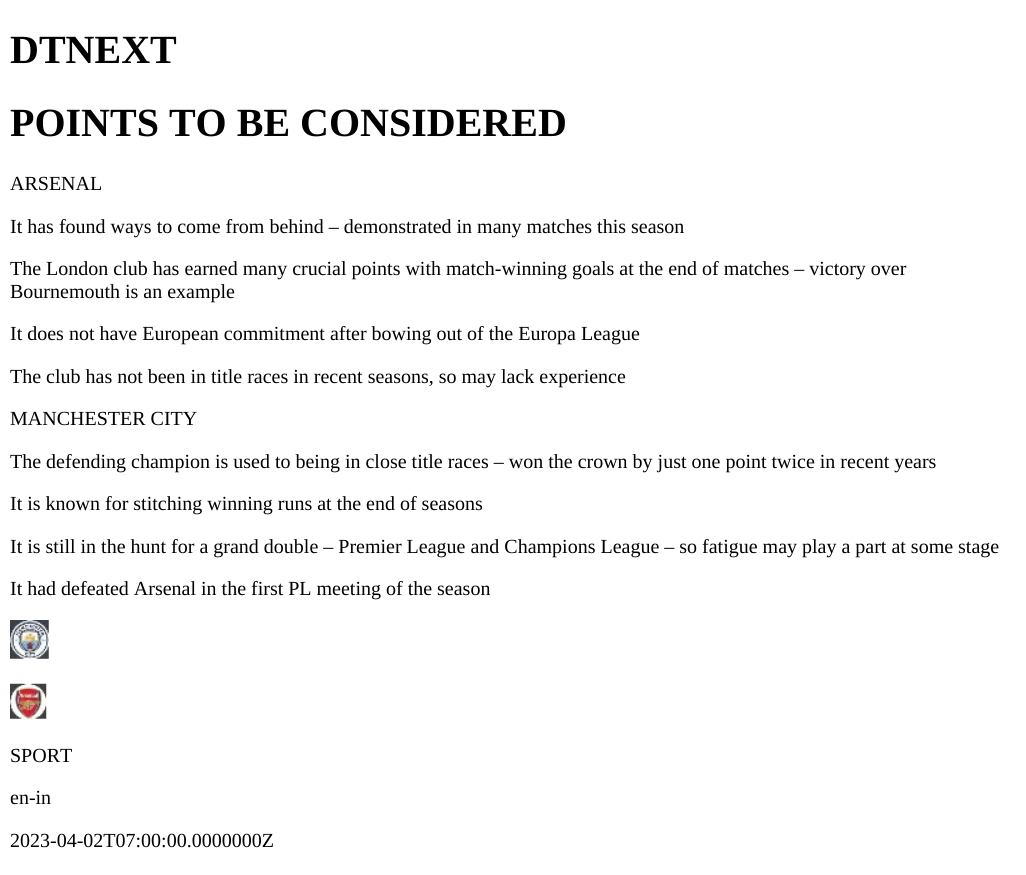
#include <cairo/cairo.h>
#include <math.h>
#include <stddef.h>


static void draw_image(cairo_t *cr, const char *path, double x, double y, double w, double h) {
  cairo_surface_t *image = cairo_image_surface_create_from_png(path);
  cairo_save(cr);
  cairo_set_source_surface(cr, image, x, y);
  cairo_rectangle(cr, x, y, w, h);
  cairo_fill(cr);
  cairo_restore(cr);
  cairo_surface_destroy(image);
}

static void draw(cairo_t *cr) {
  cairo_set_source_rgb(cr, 1, 1, 1);
  cairo_paint(cr);
  draw_image(cr, "images/1.png", 10, 620, 39, 39);
  draw_image(cr, "images/2.png", 10, 683, 37, 36);
  cairo_select_font_face(cr, "Liberation Serif", CAIRO_FONT_SLANT_NORMAL, CAIRO_FONT_WEIGHT_BOLD);
  cairo_set_font_size(cr, 40);
  cairo_set_source_rgb(cr, 0, 0, 0);
  cairo_move_to(cr, 10, 63);
  cairo_show_text(cr, "DTNEXT");
  cairo_move_to(cr, 10, 136);
  cairo_show_text(cr, "POINTS TO BE CONSIDERED");
  cairo_select_font_face(cr, "Liberation Serif", CAIRO_FONT_SLANT_NORMAL, CAIRO_FONT_WEIGHT_NORMAL);
  cairo_set_font_size(cr, 20);
  cairo_move_to(cr, 10, 190);
  cairo_show_text(cr, "ARSENAL");
  cairo_move_to(cr, 10, 233);
  cairo_show_text(cr, "It has found ways to come from behind – demonstrated in many matches this season");
  cairo_move_to(cr, 10, 275);
  cairo_show_text(cr, "The London club has earned many crucial points with match-winning goals at the end of matches – victory over");
  cairo_move_to(cr, 10, 298);
  cairo_show_text(cr, "Bournemouth is an example");
  cairo_move_to(cr, 10, 340);
  cairo_show_text(cr, "It does not have European commitment after bowing out of the Europa League");
  cairo_move_to(cr, 10, 383);
  cairo_show_text(cr, "The club has not been in title races in recent seasons, so may lack experience");
  cairo_move_to(cr, 10, 425);
  cairo_show_text(cr, "MANCHESTER CITY");
  cairo_move_to(cr, 10, 468);
  cairo_show_text(cr, "The defending champion is used to being in close title races – won the crown by just one point twice in recent years");
  cairo_move_to(cr, 10, 510);
  cairo_show_text(cr, "It is known for stitching winning runs at the end of seasons");
  cairo_move_to(cr, 10, 553);
  cairo_show_text(cr, "It is still in the hunt for a grand double – Premier League and Champions League – so fatigue may play a part at some stage");
  cairo_move_to(cr, 10, 595);
  cairo_show_text(cr, "It had defeated Arsenal in the first PL meeting of the season");
  cairo_move_to(cr, 10, 762);
  cairo_show_text(cr, "SPORT");
  cairo_move_to(cr, 10, 804);
  cairo_show_text(cr, "en-in");
  cairo_move_to(cr, 10, 847);
  cairo_show_text(cr, "2023-04-02T07:00:00.0000000Z");
}

int main(void) {
  cairo_surface_t *surface = cairo_image_surface_create(CAIRO_FORMAT_RGB24, 1026, 875);
  cairo_t *cr = cairo_create(surface);
  cairo_font_options_t *options = cairo_font_options_create();
  cairo_font_options_set_hint_metrics(options, CAIRO_HINT_METRICS_OFF);
  cairo_font_options_set_hint_style(options, CAIRO_HINT_STYLE_NONE);
  cairo_set_font_options(cr, options);
  cairo_set_miter_limit(cr, 4);
  draw(cr);
  cairo_surface_write_to_png(surface, "out.png");
  cairo_font_options_destroy(options);
  cairo_destroy(cr);
  cairo_surface_destroy(surface);
  return 0;
}
